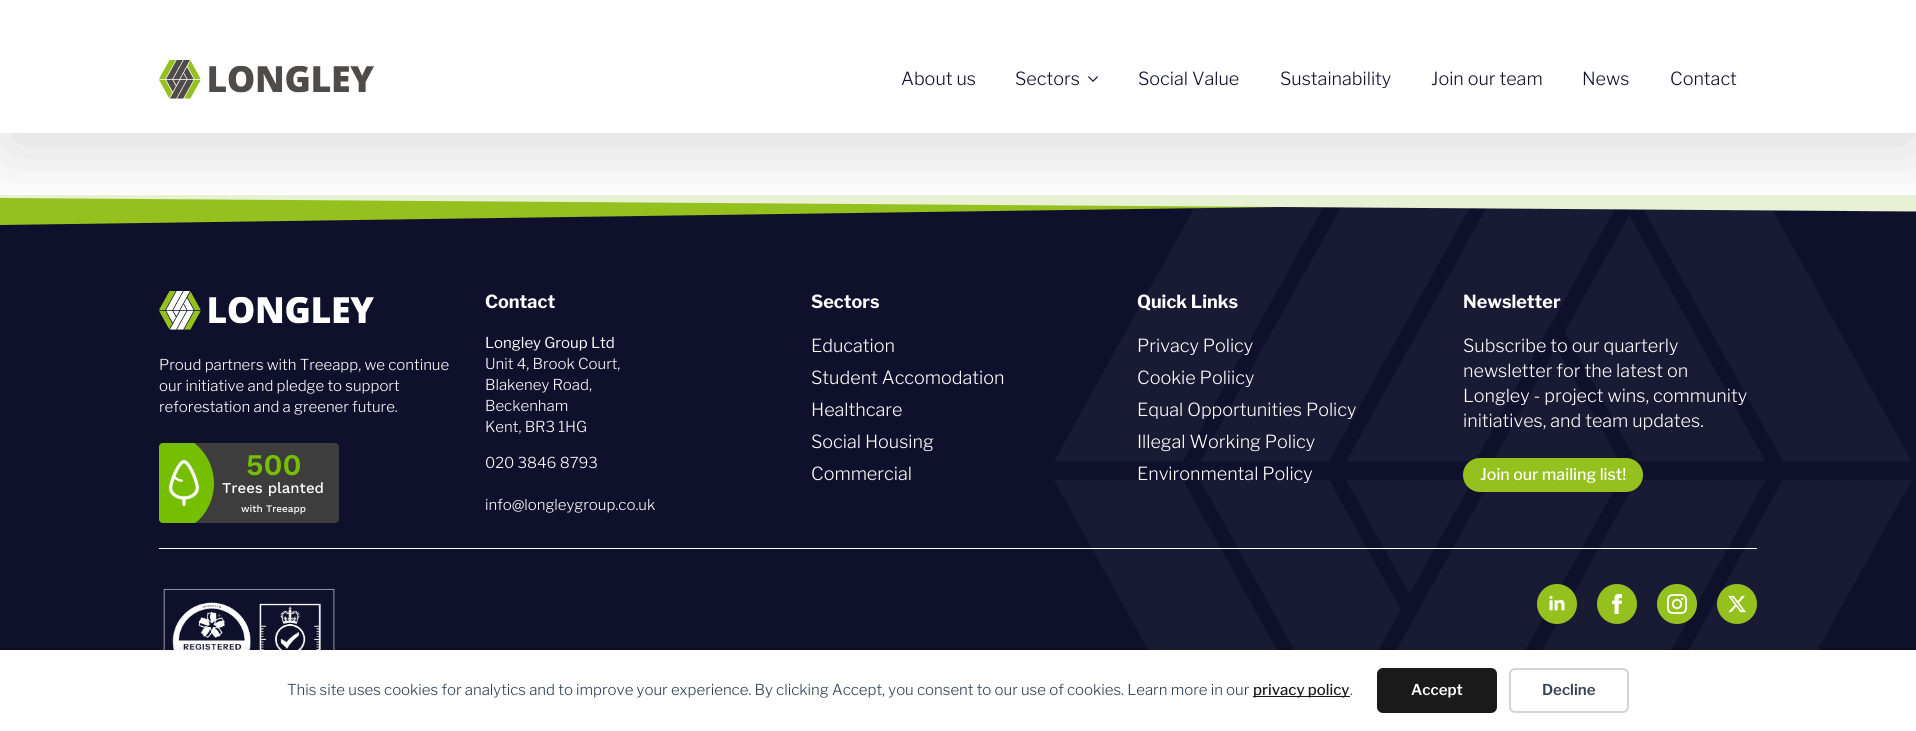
#include <cairo/cairo.h>
#include <math.h>
#include <stddef.h>


static void rounded_rect(cairo_t *cr, double x, double y, double w, double h, double r) {
  cairo_new_sub_path(cr);
  cairo_arc(cr, x + w - r, y + h - r, r, 0, M_PI / 2);
  cairo_arc(cr, x + r, y + h - r, r, M_PI / 2, M_PI);
  cairo_arc(cr, x + r, y + r, r, M_PI, 1.5 * M_PI);
  cairo_arc(cr, x + w - r, y + r, r, 1.5 * M_PI, 2 * M_PI);
  cairo_close_path(cr);
}

static void draw_shadow(cairo_t *cr, double x, double y, double w, double h, double r, double blur, double alpha) {
  cairo_push_group_with_content(cr, CAIRO_CONTENT_ALPHA);
  cairo_set_operator(cr, CAIRO_OPERATOR_SOURCE);
  for (int i = 15; i >= -15 && fmin(w, h) + blur * i / 3 > 0; i -= 2) {
    double e = blur * i / 6;
    cairo_set_source_rgba(cr, 0, 0, 0, alpha * erfc((i - 1) / 8.5) / 2);
    rounded_rect(cr, x - e, y - e, w + 2 * e, h + 2 * e, fmax(0, fmin(r + e + blur * .6, fmin(w, h) / 2 + e)));
    cairo_fill(cr);
  }
  cairo_pattern_t *soft = cairo_pop_group(cr);
  cairo_mask(cr, soft);
  cairo_pattern_destroy(soft);
}

static void draw_image(cairo_t *cr, const char *path, double x, double y, double w, double h) {
  cairo_surface_t *image = cairo_image_surface_create_from_png(path);
  cairo_save(cr);
  cairo_set_source_surface(cr, image, x, y);
  cairo_rectangle(cr, x, y, w, h);
  cairo_fill(cr);
  cairo_restore(cr);
  cairo_surface_destroy(image);
}

static void draw(cairo_t *cr) {
  cairo_set_source_rgb(cr, 1, 1, 1);
  cairo_paint(cr);
  cairo_set_source_rgb(cr, 15 / 255.0, 17 / 255.0, 44 / 255.0);
  cairo_rectangle(cr, 0, 207, 1916, 443);
  cairo_fill(cr);
  draw_image(cr, "images/3.png", 1054, 207, 858, 443);
  cairo_set_source_rgb(cr, 149 / 255.0, 193 / 255.0, 31 / 255.0);
  cairo_new_path(cr);
  cairo_move_to(cr, 1916, 198);
  cairo_line_to(cr, 0, 225);
  cairo_line_to(cr, 0, 195);
  cairo_line_to(cr, 1916, 195);
  cairo_close_path(cr);
  cairo_fill(cr);
  cairo_set_source_rgb(cr, 233 / 255.0, 241 / 255.0, 212 / 255.0);
  cairo_new_path(cr);
  cairo_move_to(cr, 0, 198);
  cairo_line_to(cr, 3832, 225);
  cairo_line_to(cr, 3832, 195);
  cairo_line_to(cr, 0, 195);
  cairo_close_path(cr);
  cairo_fill(cr);
  cairo_save(cr);
  cairo_rectangle(cr, 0, 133, 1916, 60);
  cairo_clip(cr);
  cairo_set_source_rgb(cr, 0, 0, 0);
  draw_shadow(cr, 5, 20, 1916, 133, 0, 37.5, 0.14);
  cairo_restore(cr);
  draw_image(cr, "images/1.png", 159, 60, 215, 39);
  draw_image(cr, "images/2.png", 1088, 76, 10, 6);
  draw_image(cr, "images/4.png", 159, 291, 215, 39);
  cairo_set_source_rgb(cr, 61 / 255.0, 61 / 255.0, 61 / 255.0);
  rounded_rect(cr, 159, 443, 180, 80, 4);
  cairo_fill(cr);
  cairo_save(cr);
  rounded_rect(cr, 159, 443, 180, 80, 4);
  cairo_clip(cr);
  cairo_set_source_rgb(cr, 117 / 255.0, 190 / 255.0, 0);
  cairo_arc(cr, 162.5, 483.5, 51.5, 0, 2 * M_PI);
  cairo_fill(cr);
  cairo_restore(cr);
  draw_image(cr, "images/5.png", 169, 460, 30, 46);
  cairo_set_source_rgb(cr, 149 / 255.0, 193 / 255.0, 31 / 255.0);
  rounded_rect(cr, 1463, 458, 180, 34, 17);
  cairo_fill(cr);
  cairo_set_source_rgb(cr, 1, 1, 1);
  cairo_rectangle(cr, 159, 548, 1598, 1);
  cairo_fill(cr);
  draw_image(cr, "images/6.png", 163, 588, 172, 62);
  cairo_set_source_rgb(cr, 149 / 255.0, 193 / 255.0, 31 / 255.0);
  cairo_arc(cr, 1557, 604, 20, 0, 2 * M_PI);
  cairo_fill(cr);
  draw_image(cr, "images/7.png", 1549, 595, 16, 16);
  cairo_arc(cr, 1617, 604, 20, 0, 2 * M_PI);
  cairo_fill(cr);
  draw_image(cr, "images/8.png", 1612, 594, 10, 20);
  cairo_arc(cr, 1677, 604, 20, 0, 2 * M_PI);
  cairo_fill(cr);
  draw_image(cr, "images/9.png", 1667, 594, 20, 20);
  cairo_arc(cr, 1737, 604, 20, 0, 2 * M_PI);
  cairo_fill(cr);
  draw_image(cr, "images/10.png", 1728, 595, 18, 18);
  cairo_set_source_rgb(cr, 0, 0, 0);
  draw_shadow(cr, 0, 648, 1916, 81, 0, 5, 0.08);
  cairo_set_source_rgb(cr, 1, 1, 1);
  cairo_rectangle(cr, 0, 650, 1916, 81);
  cairo_fill(cr);
  cairo_set_source_rgb(cr, 26 / 255.0, 26 / 255.0, 26 / 255.0);
  cairo_rectangle(cr, 1253, 696, 97, 1);
  cairo_fill(cr);
  rounded_rect(cr, 1377, 668, 120, 45, 6);
  cairo_fill(cr);
  rounded_rect(cr, 1510, 669, 118, 43, 5);
  cairo_set_source_rgb(cr, 209 / 255.0, 213 / 255.0, 219 / 255.0);
  cairo_stroke(cr);
  cairo_select_font_face(cr, "Libre Franklin Light", CAIRO_FONT_SLANT_NORMAL, CAIRO_FONT_WEIGHT_NORMAL);
  cairo_set_font_size(cr, 18);
  cairo_set_source_rgb(cr, 15 / 255.0, 17 / 255.0, 44 / 255.0);
  cairo_move_to(cr, 901, 85);
  cairo_show_text(cr, "About us");
  cairo_move_to(cr, 1015, 85);
  cairo_show_text(cr, "Sectors");
  cairo_move_to(cr, 1138, 85);
  cairo_show_text(cr, "Social Value");
  cairo_move_to(cr, 1280, 85);
  cairo_show_text(cr, "Sustainability");
  cairo_move_to(cr, 1431, 85);
  cairo_show_text(cr, "Join our team");
  cairo_move_to(cr, 1582, 85);
  cairo_show_text(cr, "News");
  cairo_move_to(cr, 1670, 85);
  cairo_show_text(cr, "Contact");
  cairo_set_font_size(cr, 15);
  cairo_set_source_rgb(cr, 1, 1, 1);
  cairo_move_to(cr, 159, 370);
  cairo_show_text(cr, "Proud partners with Treeapp, we continue");
  cairo_move_to(cr, 159, 391);
  cairo_show_text(cr, "our initiative and pledge to support");
  cairo_move_to(cr, 159, 412);
  cairo_show_text(cr, "reforestation and a greener future.");
  cairo_select_font_face(cr, "Work Sans SemiBold", CAIRO_FONT_SLANT_NORMAL, CAIRO_FONT_WEIGHT_NORMAL);
  cairo_set_font_size(cr, 30);
  cairo_set_source_rgb(cr, 117 / 255.0, 190 / 255.0, 0);
  cairo_move_to(cr, 246, 475);
  cairo_show_text(cr, "500");
  cairo_select_font_face(cr, "Work Sans Medium", CAIRO_FONT_SLANT_NORMAL, CAIRO_FONT_WEIGHT_NORMAL);
  cairo_set_font_size(cr, 15);
  cairo_set_source_rgb(cr, 1, 1, 1);
  cairo_move_to(cr, 222, 493);
  cairo_show_text(cr, "Trees planted");
  cairo_set_font_size(cr, 10);
  cairo_move_to(cr, 241, 512);
  cairo_show_text(cr, "with Treeapp");
  cairo_select_font_face(cr, "Libre Franklin", CAIRO_FONT_SLANT_NORMAL, CAIRO_FONT_WEIGHT_BOLD);
  cairo_set_font_size(cr, 18);
  cairo_move_to(cr, 485, 308);
  cairo_show_text(cr, "Contact");
  cairo_select_font_face(cr, "Libre Franklin", CAIRO_FONT_SLANT_NORMAL, CAIRO_FONT_WEIGHT_NORMAL);
  cairo_set_font_size(cr, 15);
  cairo_move_to(cr, 485, 348);
  cairo_show_text(cr, "Longley Group Ltd");
  cairo_select_font_face(cr, "Libre Franklin Light", CAIRO_FONT_SLANT_NORMAL, CAIRO_FONT_WEIGHT_NORMAL);
  cairo_move_to(cr, 485, 369);
  cairo_show_text(cr, "Unit 4, Brook Court,");
  cairo_move_to(cr, 485, 390);
  cairo_show_text(cr, "Blakeney Road,");
  cairo_move_to(cr, 485, 411);
  cairo_show_text(cr, "Beckenham");
  cairo_move_to(cr, 485, 432);
  cairo_show_text(cr, "Kent, BR3 1HG");
  cairo_move_to(cr, 485, 468);
  cairo_show_text(cr, "020 3846 8793");
  cairo_move_to(cr, 485, 510);
  cairo_show_text(cr, "info@longleygroup.co.uk");
  cairo_select_font_face(cr, "Libre Franklin", CAIRO_FONT_SLANT_NORMAL, CAIRO_FONT_WEIGHT_BOLD);
  cairo_set_font_size(cr, 18);
  cairo_move_to(cr, 811, 308);
  cairo_show_text(cr, "Sectors");
  cairo_select_font_face(cr, "Libre Franklin Light", CAIRO_FONT_SLANT_NORMAL, CAIRO_FONT_WEIGHT_NORMAL);
  cairo_move_to(cr, 811, 352);
  cairo_show_text(cr, "Education");
  cairo_move_to(cr, 811, 384);
  cairo_show_text(cr, "Student Accomodation");
  cairo_move_to(cr, 811, 416);
  cairo_show_text(cr, "Healthcare");
  cairo_move_to(cr, 811, 448);
  cairo_show_text(cr, "Social Housing");
  cairo_move_to(cr, 811, 480);
  cairo_show_text(cr, "Commercial");
  cairo_select_font_face(cr, "Libre Franklin", CAIRO_FONT_SLANT_NORMAL, CAIRO_FONT_WEIGHT_BOLD);
  cairo_move_to(cr, 1137, 308);
  cairo_show_text(cr, "Quick Links");
  cairo_select_font_face(cr, "Libre Franklin Light", CAIRO_FONT_SLANT_NORMAL, CAIRO_FONT_WEIGHT_NORMAL);
  cairo_move_to(cr, 1137, 352);
  cairo_show_text(cr, "Privacy Policy");
  cairo_move_to(cr, 1137, 384);
  cairo_show_text(cr, "Cookie Poliicy");
  cairo_move_to(cr, 1137, 416);
  cairo_show_text(cr, "Equal Opportunities Policy");
  cairo_move_to(cr, 1137, 448);
  cairo_show_text(cr, "Illegal Working Policy");
  cairo_move_to(cr, 1137, 480);
  cairo_show_text(cr, "Environmental Policy");
  cairo_select_font_face(cr, "Libre Franklin", CAIRO_FONT_SLANT_NORMAL, CAIRO_FONT_WEIGHT_BOLD);
  cairo_move_to(cr, 1463, 308);
  cairo_show_text(cr, "Newsletter");
  cairo_select_font_face(cr, "Libre Franklin Light", CAIRO_FONT_SLANT_NORMAL, CAIRO_FONT_WEIGHT_NORMAL);
  cairo_move_to(cr, 1463, 352);
  cairo_show_text(cr, "Subscribe to our quarterly");
  cairo_move_to(cr, 1463, 377);
  cairo_show_text(cr, "newsletter for the latest on");
  cairo_move_to(cr, 1463, 402);
  cairo_show_text(cr, "Longley - project wins, community");
  cairo_move_to(cr, 1463, 427);
  cairo_show_text(cr, "initiatives, and team updates.");
  cairo_select_font_face(cr, "Libre Franklin Medium", CAIRO_FONT_SLANT_NORMAL, CAIRO_FONT_WEIGHT_NORMAL);
  cairo_set_font_size(cr, 16);
  cairo_move_to(cr, 1480, 480);
  cairo_show_text(cr, "Join our mailing list!");
  cairo_select_font_face(cr, "Libre Franklin Light", CAIRO_FONT_SLANT_NORMAL, CAIRO_FONT_WEIGHT_NORMAL);
  cairo_set_font_size(cr, 15);
  cairo_set_source_rgb(cr, 44 / 255.0, 62 / 255.0, 80 / 255.0);
  cairo_move_to(cr, 287, 695);
  cairo_show_text(cr, "This site uses cookies for analytics and to improve your experience. By clicking Accept, you consent to our use of cookies. Learn more in our");
  cairo_select_font_face(cr, "Libre Franklin Medium", CAIRO_FONT_SLANT_NORMAL, CAIRO_FONT_WEIGHT_NORMAL);
  cairo_set_source_rgb(cr, 26 / 255.0, 26 / 255.0, 26 / 255.0);
  cairo_move_to(cr, 1253, 695);
  cairo_show_text(cr, "privacy policy");
  cairo_select_font_face(cr, "Libre Franklin Light", CAIRO_FONT_SLANT_NORMAL, CAIRO_FONT_WEIGHT_NORMAL);
  cairo_set_source_rgb(cr, 44 / 255.0, 62 / 255.0, 80 / 255.0);
  cairo_move_to(cr, 1350, 695);
  cairo_show_text(cr, ".");
  cairo_select_font_face(cr, "Libre Franklin SemiBold", CAIRO_FONT_SLANT_NORMAL, CAIRO_FONT_WEIGHT_NORMAL);
  cairo_set_source_rgb(cr, 1, 1, 1);
  cairo_move_to(cr, 1411, 695);
  cairo_show_text(cr, "Accept");
  cairo_set_source_rgb(cr, 55 / 255.0, 65 / 255.0, 81 / 255.0);
  cairo_move_to(cr, 1542, 695);
  cairo_show_text(cr, "Decline");
}

int main(void) {
  cairo_surface_t *surface = cairo_image_surface_create(CAIRO_FORMAT_RGB24, 1916, 731);
  cairo_t *cr = cairo_create(surface);
  cairo_font_options_t *options = cairo_font_options_create();
  cairo_font_options_set_hint_metrics(options, CAIRO_HINT_METRICS_OFF);
  cairo_font_options_set_hint_style(options, CAIRO_HINT_STYLE_NONE);
  cairo_set_font_options(cr, options);
  cairo_set_miter_limit(cr, 4);
  draw(cr);
  cairo_surface_write_to_png(surface, "out.png");
  cairo_font_options_destroy(options);
  cairo_destroy(cr);
  cairo_surface_destroy(surface);
  return 0;
}
